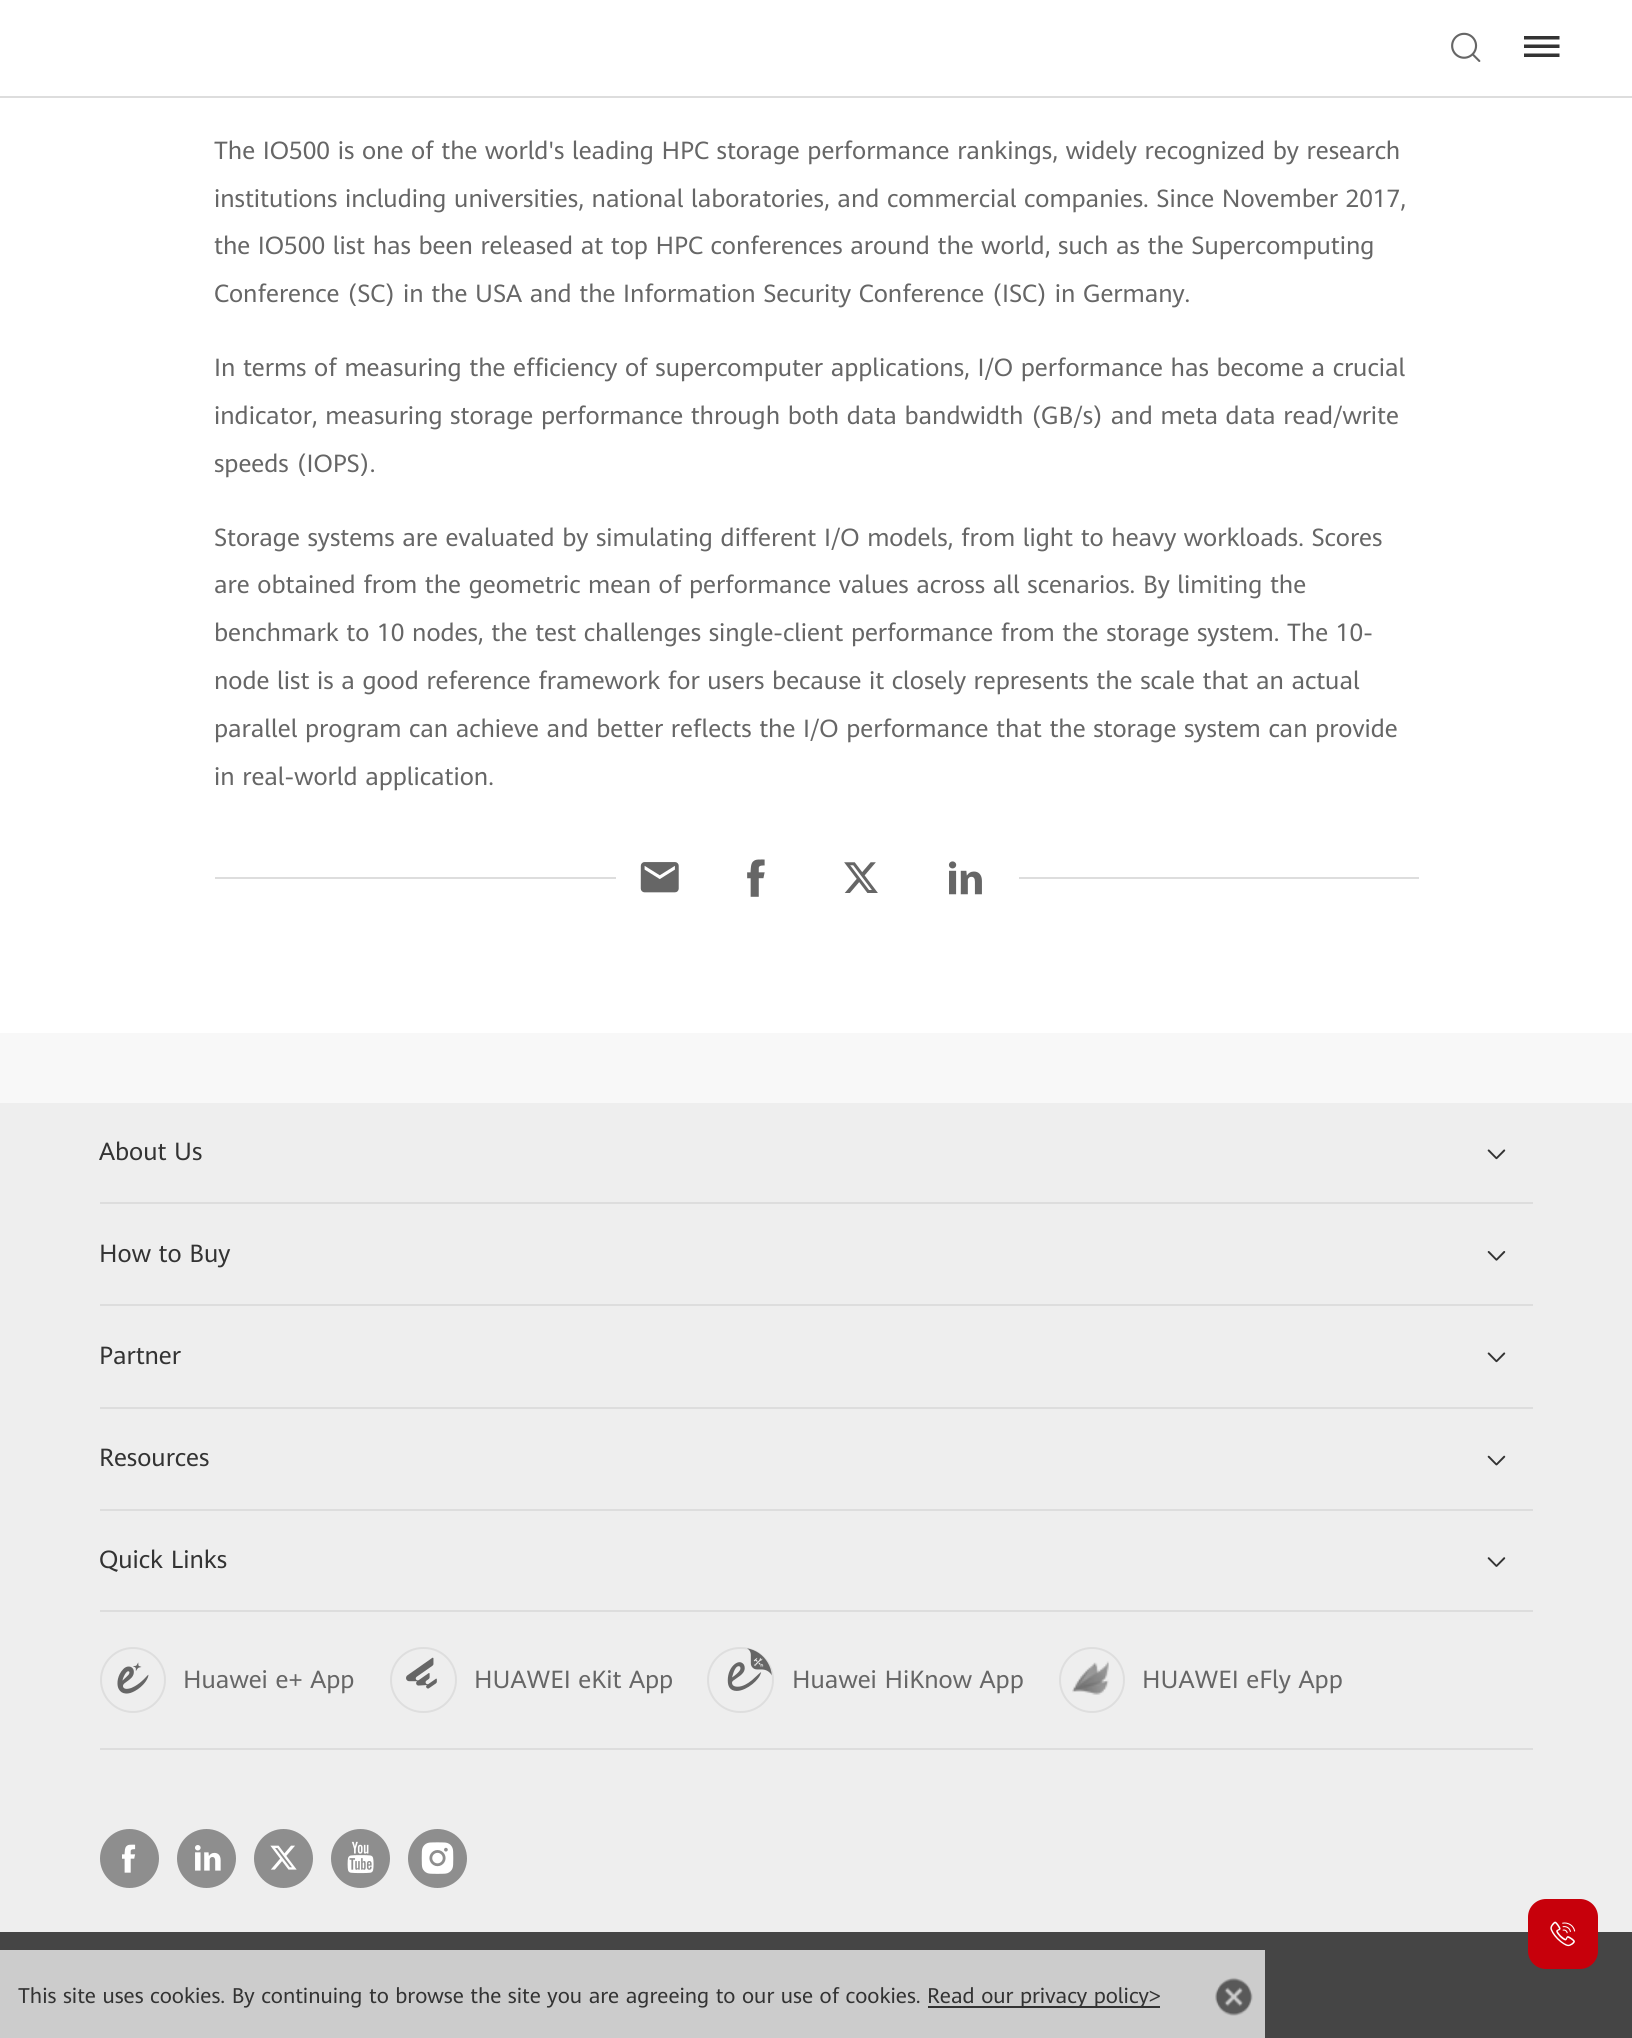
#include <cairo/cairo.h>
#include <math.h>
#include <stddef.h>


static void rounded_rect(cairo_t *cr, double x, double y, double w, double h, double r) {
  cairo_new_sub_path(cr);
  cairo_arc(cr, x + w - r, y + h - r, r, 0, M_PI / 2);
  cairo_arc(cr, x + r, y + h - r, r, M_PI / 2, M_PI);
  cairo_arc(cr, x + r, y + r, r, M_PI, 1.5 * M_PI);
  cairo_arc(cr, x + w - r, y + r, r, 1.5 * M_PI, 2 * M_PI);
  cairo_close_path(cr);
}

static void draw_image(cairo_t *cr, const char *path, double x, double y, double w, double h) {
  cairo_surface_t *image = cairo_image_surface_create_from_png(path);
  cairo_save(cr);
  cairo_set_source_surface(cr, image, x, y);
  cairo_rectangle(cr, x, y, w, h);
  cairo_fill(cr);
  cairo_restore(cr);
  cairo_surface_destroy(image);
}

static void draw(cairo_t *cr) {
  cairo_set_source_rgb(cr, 248 / 255.0, 248 / 255.0, 248 / 255.0);
  cairo_paint(cr);
  cairo_set_source_rgb(cr, 1, 1, 1);
  cairo_rectangle(cr, 0, 0, 1632, 96);
  cairo_fill(cr);
  cairo_set_source_rgb(cr, 221 / 255.0, 221 / 255.0, 221 / 255.0);
  cairo_rectangle(cr, 0, 96, 1632, 2);
  cairo_fill(cr);
  draw_image(cr, "images/1.png", 1451, 32, 30, 30);
  cairo_set_source_rgb(cr, 51 / 255.0, 51 / 255.0, 51 / 255.0);
  cairo_new_path(cr);
  cairo_move_to(cr, 1524, 53.5);
  cairo_line_to(cr, 1524, 57);
  cairo_line_to(cr, 1559.5, 57);
  cairo_line_to(cr, 1559.5, 53.5);
  cairo_close_path(cr);
  cairo_move_to(cr, 1524, 44.5);
  cairo_line_to(cr, 1524, 48);
  cairo_line_to(cr, 1559.5, 48);
  cairo_line_to(cr, 1559.5, 44.5);
  cairo_close_path(cr);
  cairo_move_to(cr, 1524, 36);
  cairo_line_to(cr, 1524, 39.5);
  cairo_line_to(cr, 1559.5, 39.5);
  cairo_line_to(cr, 1559.5, 36);
  cairo_close_path(cr);
  cairo_fill(cr);
  cairo_set_source_rgb(cr, 1, 1, 1);
  cairo_rectangle(cr, 0, 98, 1632, 935);
  cairo_fill(cr);
  cairo_set_source_rgb(cr, 221 / 255.0, 221 / 255.0, 221 / 255.0);
  cairo_rectangle(cr, 215, 877, 401, 2);
  cairo_fill(cr);
  draw_image(cr, "images/2.png", 640, 862, 39, 31);
  draw_image(cr, "images/3.png", 747, 859, 18, 38);
  draw_image(cr, "images/4.png", 844, 862, 34, 31);
  draw_image(cr, "images/5.png", 948, 861, 34, 34);
  cairo_rectangle(cr, 1019, 877, 400, 2);
  cairo_fill(cr);
  cairo_set_source_rgb(cr, 238 / 255.0, 238 / 255.0, 238 / 255.0);
  cairo_rectangle(cr, 0, 1103, 1632, 829);
  cairo_fill(cr);
  cairo_set_source_rgb(cr, 221 / 255.0, 221 / 255.0, 221 / 255.0);
  cairo_rectangle(cr, 100, 1202, 1433, 2);
  cairo_fill(cr);
  draw_image(cr, "images/6.png", 1487, 1149, 19, 11);
  cairo_rectangle(cr, 100, 1304, 1433, 2);
  cairo_fill(cr);
  draw_image(cr, "images/7.png", 1487, 1251, 19, 10);
  cairo_rectangle(cr, 100, 1407, 1433, 2);
  cairo_fill(cr);
  draw_image(cr, "images/6.png", 1487, 1352, 19, 11);
  cairo_rectangle(cr, 100, 1509, 1433, 2);
  cairo_fill(cr);
  draw_image(cr, "images/8.png", 1487, 1455, 19, 11);
  cairo_rectangle(cr, 100, 1610, 1433, 2);
  cairo_fill(cr);
  draw_image(cr, "images/9.png", 1487, 1557, 19, 10);
  cairo_arc(cr, 133, 1680, 32, 0, 2 * M_PI);
  cairo_set_source_rgb(cr, 222 / 255.0, 222 / 255.0, 222 / 255.0);
  cairo_stroke(cr);
  draw_image(cr, "images/10.png", 117, 1662, 32, 32);
  rounded_rect(cr, 391, 1648, 65, 64, 32);
  cairo_stroke(cr);
  draw_image(cr, "images/11.png", 406, 1657, 31, 32);
  rounded_rect(cr, 708, 1648, 65, 64, 32);
  cairo_stroke(cr);
  draw_image(cr, "images/12.png", 727, 1648, 45, 43);
  cairo_arc(cr, 1092, 1680, 32, 0, 2 * M_PI);
  cairo_stroke(cr);
  draw_image(cr, "images/13.png", 1072, 1661, 37, 34);
  cairo_set_source_rgb(cr, 221 / 255.0, 221 / 255.0, 221 / 255.0);
  cairo_rectangle(cr, 100, 1748, 1433, 2);
  cairo_fill(cr);
  cairo_set_source_rgb(cr, 142 / 255.0, 142 / 255.0, 142 / 255.0);
  cairo_arc(cr, 129.5, 1858.5, 29.5, 0, 2 * M_PI);
  cairo_fill(cr);
  draw_image(cr, "images/14.png", 122, 1844, 14, 29);
  cairo_arc(cr, 206.5, 1858.5, 29.5, 0, 2 * M_PI);
  cairo_fill(cr);
  draw_image(cr, "images/15.png", 195, 1845, 26, 26);
  cairo_arc(cr, 283.5, 1858.5, 29.5, 0, 2 * M_PI);
  cairo_fill(cr);
  draw_image(cr, "images/16.png", 270, 1845, 27, 25);
  cairo_arc(cr, 360.5, 1858.5, 29.5, 0, 2 * M_PI);
  cairo_fill(cr);
  draw_image(cr, "images/17.png", 347, 1841, 27, 33);
  cairo_arc(cr, 437.5, 1858.5, 29.5, 0, 2 * M_PI);
  cairo_fill(cr);
  draw_image(cr, "images/18.png", 421, 1842, 33, 32);
  cairo_set_source_rgb(cr, 69 / 255.0, 69 / 255.0, 69 / 255.0);
  cairo_rectangle(cr, 0, 1932, 1632, 106);
  cairo_fill(cr);
  cairo_set_source_rgb(cr, 199 / 255.0, 0, 11 / 255.0);
  rounded_rect(cr, 1528, 1899, 70, 70, 18);
  cairo_fill(cr);
  draw_image(cr, "images/19.png", 1550, 1921, 26, 26);
  cairo_set_source_rgb(cr, 204 / 255.0, 204 / 255.0, 204 / 255.0);
  cairo_rectangle(cr, 0, 1950, 1265, 88);
  cairo_fill(cr);
  cairo_set_source_rgb(cr, 51 / 255.0, 51 / 255.0, 51 / 255.0);
  cairo_rectangle(cr, 928, 2006, 232, 2);
  cairo_fill(cr);
  draw_image(cr, "images/20.png", 1215, 1977, 38, 39);
  cairo_select_font_face(cr, "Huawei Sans", CAIRO_FONT_SLANT_NORMAL, CAIRO_FONT_WEIGHT_NORMAL);
  cairo_set_font_size(cr, 24.5);
  cairo_set_source_rgb(cr, 102 / 255.0, 102 / 255.0, 102 / 255.0);
  cairo_move_to(cr, 214, 159);
  cairo_show_text(cr, "The IO500 is one of the world's leading HPC storage performance rankings, widely recognized by research");
  cairo_move_to(cr, 214, 207);
  cairo_show_text(cr, "institutions including universities, national laboratories, and commercial companies. Since November 2017,");
  cairo_move_to(cr, 214, 254);
  cairo_show_text(cr, "the IO500 list has been released at top HPC conferences around the world, such as the Supercomputing");
  cairo_move_to(cr, 214, 302);
  cairo_show_text(cr, "Conference (SC) in the USA and the Information Security Conference (ISC) in Germany.");
  cairo_move_to(cr, 214, 376);
  cairo_show_text(cr, "In terms of measuring the efficiency of supercomputer applications, I/O performance has become a crucial");
  cairo_move_to(cr, 214, 424);
  cairo_show_text(cr, "indicator, measuring storage performance through both data bandwidth (GB/s) and meta data read/write");
  cairo_move_to(cr, 214, 472);
  cairo_show_text(cr, "speeds (IOPS).");
  cairo_move_to(cr, 214, 546);
  cairo_show_text(cr, "Storage systems are evaluated by simulating different I/O models, from light to heavy workloads. Scores");
  cairo_move_to(cr, 214, 593);
  cairo_show_text(cr, "are obtained from the geometric mean of performance values across all scenarios. By limiting the");
  cairo_move_to(cr, 214, 641);
  cairo_show_text(cr, "benchmark to 10 nodes, the test challenges single-client performance from the storage system. The 10-");
  cairo_move_to(cr, 214, 689);
  cairo_show_text(cr, "node list is a good reference framework for users because it closely represents the scale that an actual");
  cairo_move_to(cr, 214, 737);
  cairo_show_text(cr, "parallel program can achieve and better reflects the I/O performance that the storage system can provide");
  cairo_move_to(cr, 214, 785);
  cairo_show_text(cr, "in real-world application.");
  cairo_set_source_rgb(cr, 51 / 255.0, 51 / 255.0, 51 / 255.0);
  cairo_move_to(cr, 99, 1160);
  cairo_show_text(cr, "About Us");
  cairo_move_to(cr, 99, 1262);
  cairo_show_text(cr, "How to Buy");
  cairo_move_to(cr, 99, 1364);
  cairo_show_text(cr, "Partner");
  cairo_move_to(cr, 99, 1466);
  cairo_show_text(cr, "Resources");
  cairo_move_to(cr, 99, 1568);
  cairo_show_text(cr, "Quick Links");
  cairo_set_source_rgb(cr, 102 / 255.0, 102 / 255.0, 102 / 255.0);
  cairo_move_to(cr, 183, 1688);
  cairo_show_text(cr, "Huawei e+ App");
  cairo_move_to(cr, 474, 1688);
  cairo_show_text(cr, "HUAWEI eKit App");
  cairo_move_to(cr, 792, 1688);
  cairo_show_text(cr, "Huawei HiKnow App");
  cairo_move_to(cr, 1142, 1688);
  cairo_show_text(cr, "HUAWEI eFly App");
  cairo_set_font_size(cr, 21);
  cairo_set_source_rgb(cr, 51 / 255.0, 51 / 255.0, 51 / 255.0);
  cairo_move_to(cr, 18, 2003);
  cairo_show_text(cr, "This site uses cookies. By continuing to browse the site you are agreeing to our use of cookies.");
  cairo_move_to(cr, 927, 2003);
  cairo_show_text(cr, "Read our privacy policy>");
}

int main(void) {
  cairo_surface_t *surface = cairo_image_surface_create(CAIRO_FORMAT_RGB24, 1632, 2038);
  cairo_t *cr = cairo_create(surface);
  cairo_font_options_t *options = cairo_font_options_create();
  cairo_font_options_set_hint_metrics(options, CAIRO_HINT_METRICS_OFF);
  cairo_font_options_set_hint_style(options, CAIRO_HINT_STYLE_NONE);
  cairo_set_font_options(cr, options);
  cairo_set_miter_limit(cr, 4);
  draw(cr);
  cairo_surface_write_to_png(surface, "out.png");
  cairo_font_options_destroy(options);
  cairo_destroy(cr);
  cairo_surface_destroy(surface);
  return 0;
}
